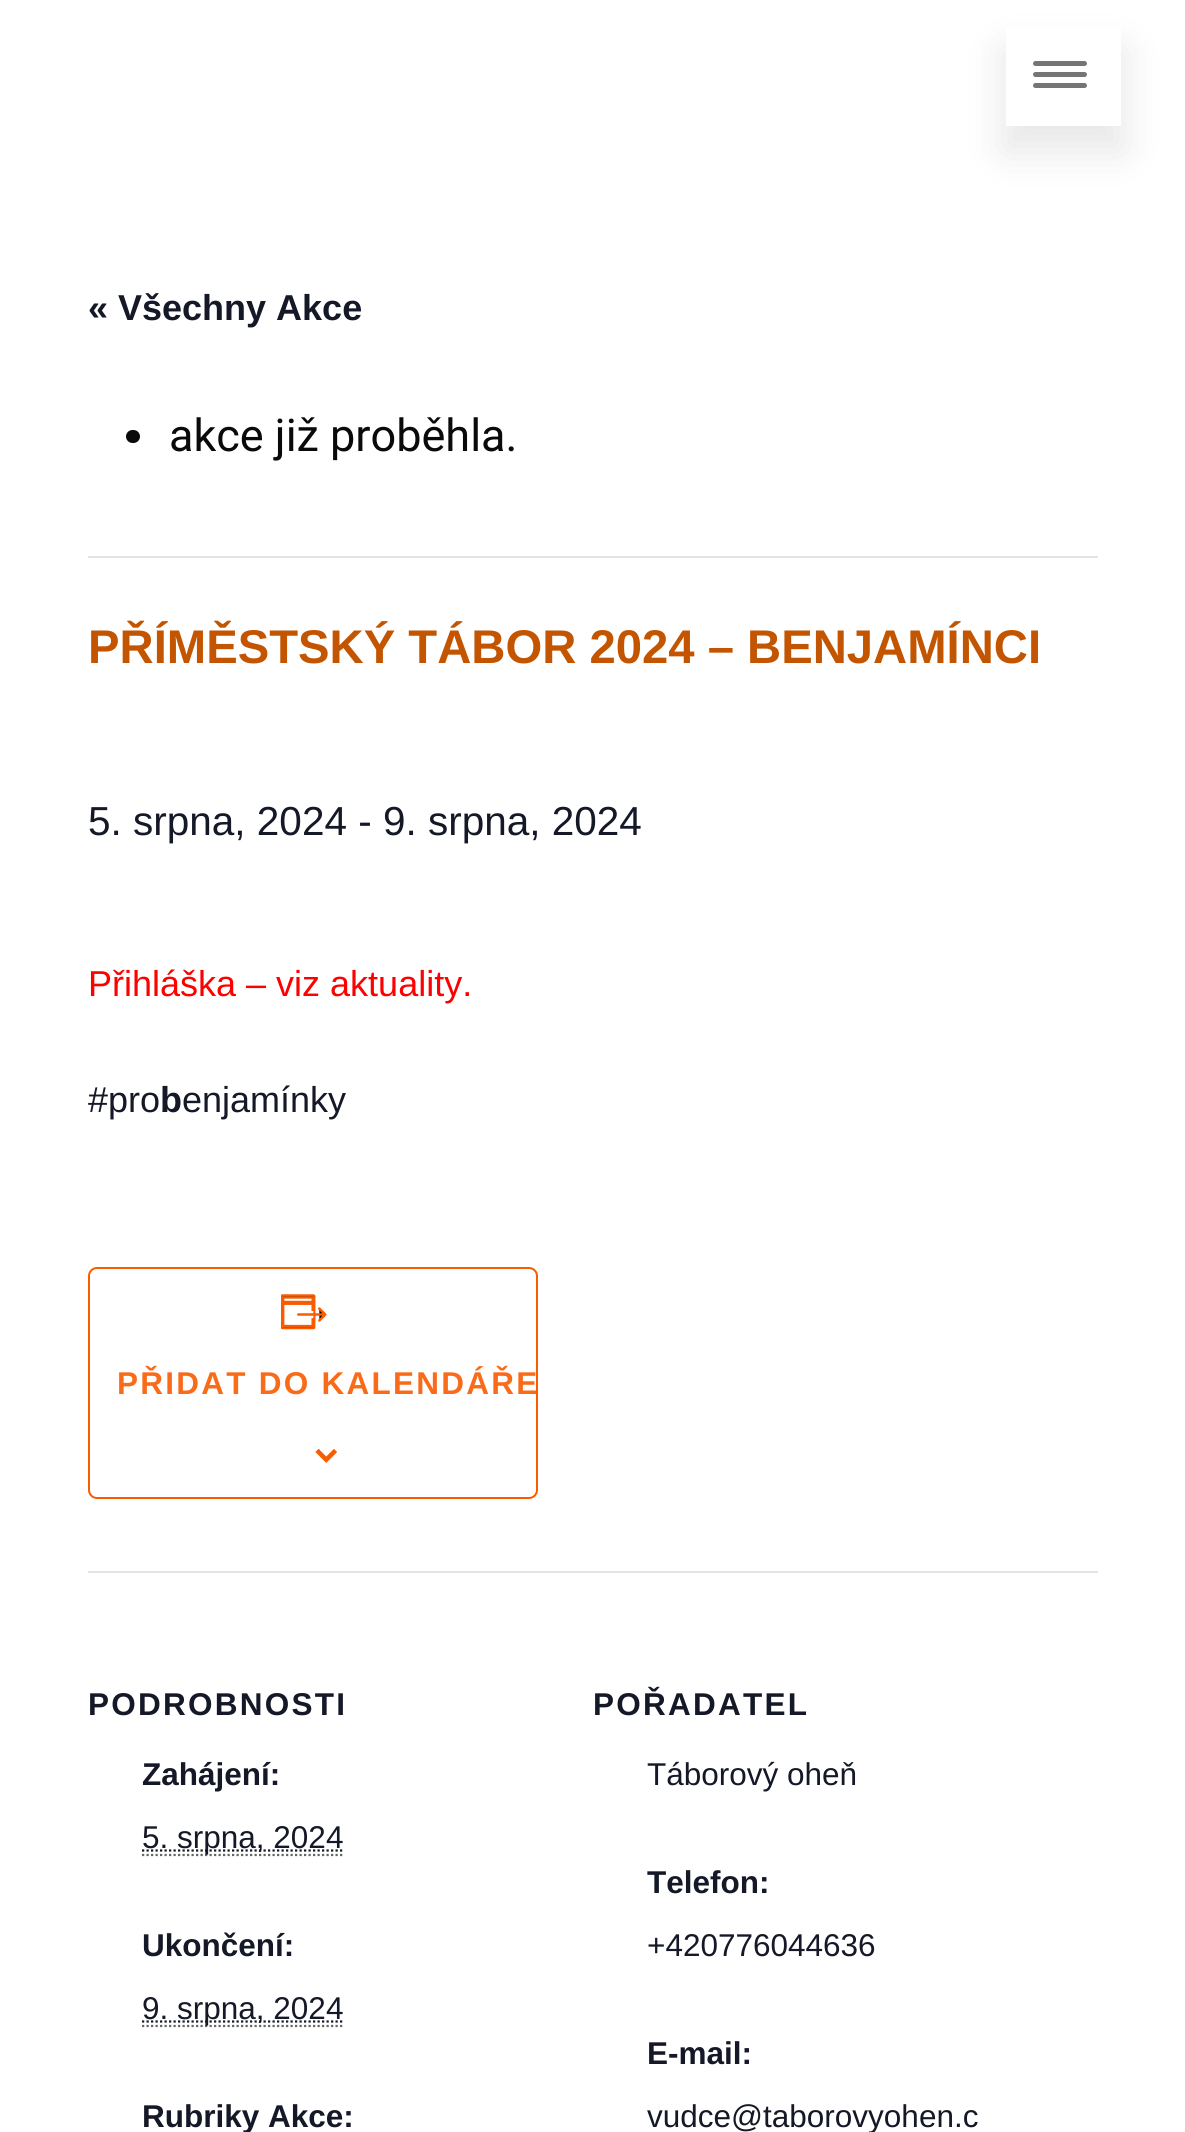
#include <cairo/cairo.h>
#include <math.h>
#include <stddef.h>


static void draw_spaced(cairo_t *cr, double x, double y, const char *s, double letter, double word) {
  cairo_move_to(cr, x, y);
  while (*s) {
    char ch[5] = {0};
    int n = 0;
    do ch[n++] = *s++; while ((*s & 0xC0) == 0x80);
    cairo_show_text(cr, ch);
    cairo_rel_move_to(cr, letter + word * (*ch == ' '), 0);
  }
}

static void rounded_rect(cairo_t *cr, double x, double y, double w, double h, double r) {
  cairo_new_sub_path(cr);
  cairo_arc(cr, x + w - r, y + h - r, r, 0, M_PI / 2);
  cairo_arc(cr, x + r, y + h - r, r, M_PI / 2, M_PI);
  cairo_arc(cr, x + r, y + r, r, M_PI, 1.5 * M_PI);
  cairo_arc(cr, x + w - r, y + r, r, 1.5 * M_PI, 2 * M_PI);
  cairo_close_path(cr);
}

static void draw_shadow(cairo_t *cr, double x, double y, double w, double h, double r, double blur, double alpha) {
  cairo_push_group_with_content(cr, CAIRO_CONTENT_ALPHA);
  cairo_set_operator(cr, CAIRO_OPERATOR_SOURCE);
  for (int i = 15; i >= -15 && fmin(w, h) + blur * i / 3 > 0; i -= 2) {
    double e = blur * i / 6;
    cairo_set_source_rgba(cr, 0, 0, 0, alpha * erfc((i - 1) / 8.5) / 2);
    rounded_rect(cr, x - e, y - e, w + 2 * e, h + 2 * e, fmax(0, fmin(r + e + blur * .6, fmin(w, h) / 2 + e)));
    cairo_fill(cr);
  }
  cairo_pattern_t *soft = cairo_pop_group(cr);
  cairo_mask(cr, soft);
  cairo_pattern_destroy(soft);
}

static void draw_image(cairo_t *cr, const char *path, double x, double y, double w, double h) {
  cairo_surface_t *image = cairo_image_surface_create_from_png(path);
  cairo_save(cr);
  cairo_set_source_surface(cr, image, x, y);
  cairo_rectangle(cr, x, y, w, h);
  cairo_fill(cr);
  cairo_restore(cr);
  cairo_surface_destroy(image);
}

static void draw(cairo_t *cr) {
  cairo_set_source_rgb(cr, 1, 1, 1);
  cairo_paint(cr);
  cairo_save(cr);
  cairo_set_fill_rule(cr, CAIRO_FILL_RULE_EVEN_ODD);
  cairo_new_path(cr);
  cairo_move_to(cr, 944, 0);
  cairo_line_to(cr, 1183, 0);
  cairo_line_to(cr, 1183, 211);
  cairo_line_to(cr, 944, 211);
  cairo_close_path(cr);
  cairo_move_to(cr, 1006, 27);
  cairo_line_to(cr, 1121, 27);
  cairo_line_to(cr, 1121, 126);
  cairo_line_to(cr, 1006, 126);
  cairo_close_path(cr);
  cairo_clip(cr);
  cairo_set_source_rgb(cr, 64 / 255.0, 64 / 255.0, 64 / 255.0);
  draw_shadow(cr, 1004, 50, 119, 101, 0, 19.5, 0.13);
  cairo_restore(cr);
  cairo_set_source_rgb(cr, 117 / 255.0, 117 / 255.0, 117 / 255.0);
  rounded_rect(cr, 1033, 61, 54, 5, 2.5);
  cairo_fill(cr);
  rounded_rect(cr, 1033, 72, 54, 5, 2.5);
  cairo_fill(cr);
  rounded_rect(cr, 1033, 83, 54, 5, 2.5);
  cairo_fill(cr);
  cairo_set_source_rgb(cr, 228 / 255.0, 228 / 255.0, 228 / 255.0);
  cairo_rectangle(cr, 88, 556, 1010, 2);
  cairo_fill(cr);
  cairo_set_source_rgb(cr, 10 / 255.0, 10 / 255.0, 10 / 255.0);
  rounded_rect(cr, 126, 430, 14, 13, 6.5);
  cairo_fill(cr);
  rounded_rect(cr, 89, 1268, 448, 230, 8);
  cairo_set_source_rgb(cr, 249 / 255.0, 91 / 255.0, 0);
  cairo_stroke(cr);
  draw_image(cr, "images/1.png", 281, 1294, 46, 36);
  draw_image(cr, "images/2.png", 315, 1449, 22, 14);
  cairo_set_source_rgb(cr, 228 / 255.0, 228 / 255.0, 228 / 255.0);
  cairo_rectangle(cr, 88, 1571, 1010, 2);
  cairo_fill(cr);
  cairo_new_path(cr);
  cairo_move_to(cr, 142, 1855);
  cairo_line_to(cr, 344, 1855);
  cairo_set_source_rgb(cr, 102 / 255.0, 102 / 255.0, 102 / 255.0);
  cairo_set_line_width(cr, 2.2);
  cairo_set_dash(cr, (double[]){2.25, 2.25}, 2, 0);
  cairo_stroke(cr);
  cairo_new_path(cr);
  cairo_move_to(cr, 142, 1850.5);
  cairo_line_to(cr, 343, 1850.5);
  cairo_set_source_rgb(cr, 20 / 255.0, 24 / 255.0, 39 / 255.0);
  cairo_stroke(cr);
  cairo_new_path(cr);
  cairo_move_to(cr, 142, 2026);
  cairo_line_to(cr, 344, 2026);
  cairo_set_source_rgb(cr, 102 / 255.0, 102 / 255.0, 102 / 255.0);
  cairo_stroke(cr);
  cairo_new_path(cr);
  cairo_move_to(cr, 142, 2021.5);
  cairo_line_to(cr, 343, 2021.5);
  cairo_set_source_rgb(cr, 20 / 255.0, 24 / 255.0, 39 / 255.0);
  cairo_stroke(cr);
  cairo_select_font_face(cr, "Liberation Sans", CAIRO_FONT_SLANT_NORMAL, CAIRO_FONT_WEIGHT_BOLD);
  cairo_set_font_size(cr, 36);
  cairo_move_to(cr, 88, 320);
  cairo_show_text(cr, "« Všechny Akce");
  cairo_select_font_face(cr, "Roboto", CAIRO_FONT_SLANT_NORMAL, CAIRO_FONT_WEIGHT_NORMAL);
  cairo_set_font_size(cr, 45);
  cairo_set_source_rgb(cr, 10 / 255.0, 10 / 255.0, 10 / 255.0);
  cairo_move_to(cr, 169, 451);
  cairo_show_text(cr, "akce již proběhla.");
  cairo_select_font_face(cr, "Liberation Sans", CAIRO_FONT_SLANT_NORMAL, CAIRO_FONT_WEIGHT_BOLD);
  cairo_set_font_size(cr, 47.25);
  cairo_set_source_rgb(cr, 196 / 255.0, 85 / 255.0, 0);
  cairo_move_to(cr, 88, 663);
  cairo_show_text(cr, "PŘÍMĚSTSKÝ TÁBOR 2024 – BENJAMÍNCI");
  cairo_select_font_face(cr, "Liberation Sans", CAIRO_FONT_SLANT_NORMAL, CAIRO_FONT_WEIGHT_NORMAL);
  cairo_set_font_size(cr, 40.5);
  cairo_set_source_rgb(cr, 20 / 255.0, 24 / 255.0, 39 / 255.0);
  cairo_move_to(cr, 88, 835);
  cairo_show_text(cr, "5. srpna, 2024 - 9. srpna, 2024");
  cairo_set_font_size(cr, 36);
  cairo_set_source_rgb(cr, 1, 0, 0);
  cairo_move_to(cr, 88, 996);
  cairo_show_text(cr, "Přihláška – viz aktuality.");
  cairo_set_source_rgb(cr, 20 / 255.0, 24 / 255.0, 39 / 255.0);
  cairo_move_to(cr, 88, 1112);
  cairo_show_text(cr, "#pro");
  cairo_select_font_face(cr, "Liberation Sans", CAIRO_FONT_SLANT_NORMAL, CAIRO_FONT_WEIGHT_BOLD);
  cairo_move_to(cr, 160, 1112);
  cairo_show_text(cr, "b");
  cairo_select_font_face(cr, "Liberation Sans", CAIRO_FONT_SLANT_NORMAL, CAIRO_FONT_WEIGHT_NORMAL);
  cairo_move_to(cr, 182, 1112);
  cairo_show_text(cr, "enjamínky");
  cairo_select_font_face(cr, "Liberation Sans", CAIRO_FONT_SLANT_NORMAL, CAIRO_FONT_WEIGHT_BOLD);
  cairo_set_font_size(cr, 31.5);
  cairo_set_source_rgb(cr, 250 / 255.0, 107 / 255.0, 25 / 255.0);
  draw_spaced(cr, 117, 1394, "PŘIDAT DO KALENDÁŘE", 2.25, 0);
  cairo_set_source_rgb(cr, 20 / 255.0, 24 / 255.0, 39 / 255.0);
  draw_spaced(cr, 88, 1715, "PODROBNOSTI", 2.25, 0);
  cairo_move_to(cr, 142, 1785);
  cairo_show_text(cr, "Zahájení:");
  cairo_select_font_face(cr, "Liberation Sans", CAIRO_FONT_SLANT_NORMAL, CAIRO_FONT_WEIGHT_NORMAL);
  cairo_move_to(cr, 142, 1848);
  cairo_show_text(cr, "5. srpna, 2024");
  cairo_select_font_face(cr, "Liberation Sans", CAIRO_FONT_SLANT_NORMAL, CAIRO_FONT_WEIGHT_BOLD);
  cairo_move_to(cr, 142, 1956);
  cairo_show_text(cr, "Ukončení:");
  cairo_select_font_face(cr, "Liberation Sans", CAIRO_FONT_SLANT_NORMAL, CAIRO_FONT_WEIGHT_NORMAL);
  cairo_move_to(cr, 142, 2019);
  cairo_show_text(cr, "9. srpna, 2024");
  cairo_select_font_face(cr, "Liberation Sans", CAIRO_FONT_SLANT_NORMAL, CAIRO_FONT_WEIGHT_BOLD);
  cairo_move_to(cr, 142, 2127);
  cairo_show_text(cr, "Rubriky Akce:");
  draw_spaced(cr, 593, 1715, "POŘADATEL", 2.25, 0);
  cairo_select_font_face(cr, "Liberation Sans", CAIRO_FONT_SLANT_NORMAL, CAIRO_FONT_WEIGHT_NORMAL);
  cairo_move_to(cr, 647, 1785);
  cairo_show_text(cr, "Táborový oheň");
  cairo_select_font_face(cr, "Liberation Sans", CAIRO_FONT_SLANT_NORMAL, CAIRO_FONT_WEIGHT_BOLD);
  cairo_move_to(cr, 647, 1893);
  cairo_show_text(cr, "Telefon:");
  cairo_select_font_face(cr, "Liberation Sans", CAIRO_FONT_SLANT_NORMAL, CAIRO_FONT_WEIGHT_NORMAL);
  cairo_move_to(cr, 647, 1956);
  cairo_show_text(cr, "+420776044636");
  cairo_select_font_face(cr, "Liberation Sans", CAIRO_FONT_SLANT_NORMAL, CAIRO_FONT_WEIGHT_BOLD);
  cairo_move_to(cr, 647, 2064);
  cairo_show_text(cr, "E-mail:");
  cairo_select_font_face(cr, "Liberation Sans", CAIRO_FONT_SLANT_NORMAL, CAIRO_FONT_WEIGHT_NORMAL);
  cairo_move_to(cr, 647, 2127);
  cairo_show_text(cr, "vudce@taborovyohen.c");
}

int main(void) {
  cairo_surface_t *surface = cairo_image_surface_create(CAIRO_FORMAT_RGB24, 1185, 2132);
  cairo_t *cr = cairo_create(surface);
  cairo_font_options_t *options = cairo_font_options_create();
  cairo_font_options_set_hint_metrics(options, CAIRO_HINT_METRICS_OFF);
  cairo_font_options_set_hint_style(options, CAIRO_HINT_STYLE_NONE);
  cairo_set_font_options(cr, options);
  cairo_set_miter_limit(cr, 4);
  draw(cr);
  cairo_surface_write_to_png(surface, "out.png");
  cairo_font_options_destroy(options);
  cairo_destroy(cr);
  cairo_surface_destroy(surface);
  return 0;
}
